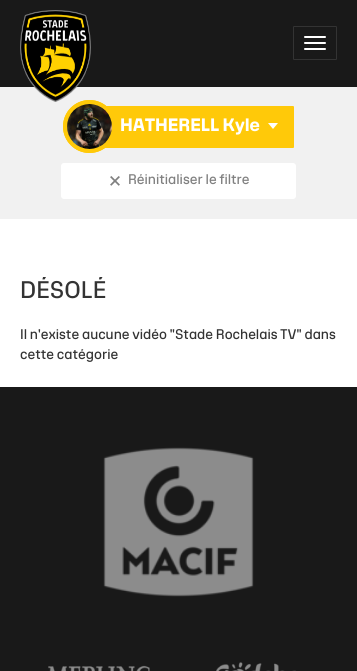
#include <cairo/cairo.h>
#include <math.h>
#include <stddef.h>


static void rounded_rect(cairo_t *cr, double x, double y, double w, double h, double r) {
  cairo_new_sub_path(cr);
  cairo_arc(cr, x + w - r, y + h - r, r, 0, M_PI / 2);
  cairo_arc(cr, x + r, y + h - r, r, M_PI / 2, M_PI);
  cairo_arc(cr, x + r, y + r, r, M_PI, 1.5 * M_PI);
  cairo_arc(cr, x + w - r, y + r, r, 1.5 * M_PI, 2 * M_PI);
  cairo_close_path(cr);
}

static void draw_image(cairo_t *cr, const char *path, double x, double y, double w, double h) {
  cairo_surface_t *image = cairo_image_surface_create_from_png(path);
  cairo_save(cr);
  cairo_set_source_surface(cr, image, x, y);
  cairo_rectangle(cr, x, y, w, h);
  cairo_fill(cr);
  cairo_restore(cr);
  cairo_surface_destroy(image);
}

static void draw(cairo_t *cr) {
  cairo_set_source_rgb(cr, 1, 1, 1);
  cairo_paint(cr);
  cairo_set_source_rgb(cr, 25 / 255.0, 25 / 255.0, 25 / 255.0);
  cairo_rectangle(cr, 0, 0, 357, 87);
  cairo_fill(cr);
  cairo_set_source_rgb(cr, 241 / 255.0, 241 / 255.0, 241 / 255.0);
  cairo_rectangle(cr, 0, 87, 357, 132);
  cairo_fill(cr);
  cairo_set_source_rgb(cr, 1, 201 / 255.0, 9 / 255.0);
  cairo_arc(cr, 89.5, 126.5, 26.5, 0, 2 * M_PI);
  cairo_fill(cr);
  rounded_rect(cr, 104, 106, 190, 42, 1);
  cairo_fill(cr);
  cairo_arc(cr, 89.5, 126.5, 24.5, 0, 2 * M_PI);
  cairo_set_line_width(cr, 4);
  cairo_stroke(cr);
  draw_image(cr, "images/1.png", 20, 10, 71, 92);
  rounded_rect(cr, 293.5, 26.5, 43, 33, 0.5);
  cairo_set_source_rgb(cr, 51 / 255.0, 51 / 255.0, 51 / 255.0);
  cairo_set_line_width(cr, 1);
  cairo_stroke(cr);
  cairo_set_source_rgb(cr, 1, 1, 1);
  rounded_rect(cr, 304, 36, 22, 2, 1);
  cairo_fill(cr);
  rounded_rect(cr, 304, 42, 22, 2, 1);
  cairo_fill(cr);
  rounded_rect(cr, 304, 48, 22, 2, 1);
  cairo_fill(cr);
  draw_image(cr, "images/2.png", 67, 104, 45, 45);
  cairo_new_path(cr);
  cairo_move_to(cr, 268, 123);
  cairo_line_to(cr, 278, 123);
  cairo_line_to(cr, 273, 129);
  cairo_close_path(cr);
  cairo_fill(cr);
  rounded_rect(cr, 61, 163, 235, 36, 3);
  cairo_fill(cr);
  draw_image(cr, "images/3.png", 110, 176, 10, 10);
  cairo_set_source_rgb(cr, 25 / 255.0, 25 / 255.0, 25 / 255.0);
  cairo_rectangle(cr, 0, 387, 357, 284);
  cairo_fill(cr);
  draw_image(cr, "images/4.png", 103, 447, 151, 150);
  draw_image(cr, "images/5.png", 48, 665, 102, 6);
  draw_image(cr, "images/6.png", 216, 662, 80, 9);
  cairo_select_font_face(cr, "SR", CAIRO_FONT_SLANT_NORMAL, CAIRO_FONT_WEIGHT_BOLD);
  cairo_set_font_size(cr, 18);
  cairo_set_source_rgb(cr, 1, 1, 1);
  cairo_move_to(cr, 120, 131);
  cairo_show_text(cr, "HATHERELL Kyle");
  cairo_select_font_face(cr, "SR", CAIRO_FONT_SLANT_NORMAL, CAIRO_FONT_WEIGHT_NORMAL);
  cairo_set_font_size(cr, 14);
  cairo_set_source_rgb(cr, 128 / 255.0, 128 / 255.0, 128 / 255.0);
  cairo_move_to(cr, 128, 184);
  cairo_show_text(cr, "Réinitialiser le filtre");
  cairo_set_font_size(cr, 24);
  cairo_set_source_rgb(cr, 51 / 255.0, 51 / 255.0, 51 / 255.0);
  cairo_move_to(cr, 20, 298);
  cairo_show_text(cr, "DÉSOLÉ");
  cairo_set_font_size(cr, 14);
  cairo_move_to(cr, 20, 339);
  cairo_show_text(cr, "Il n'existe aucune vidéo \"Stade Rochelais TV\" dans");
  cairo_move_to(cr, 20, 359);
  cairo_show_text(cr, "cette catégorie");
}

int main(void) {
  cairo_surface_t *surface = cairo_image_surface_create(CAIRO_FORMAT_RGB24, 357, 671);
  cairo_t *cr = cairo_create(surface);
  cairo_font_options_t *options = cairo_font_options_create();
  cairo_font_options_set_hint_metrics(options, CAIRO_HINT_METRICS_OFF);
  cairo_font_options_set_hint_style(options, CAIRO_HINT_STYLE_NONE);
  cairo_set_font_options(cr, options);
  cairo_set_miter_limit(cr, 4);
  draw(cr);
  cairo_surface_write_to_png(surface, "out.png");
  cairo_font_options_destroy(options);
  cairo_destroy(cr);
  cairo_surface_destroy(surface);
  return 0;
}
